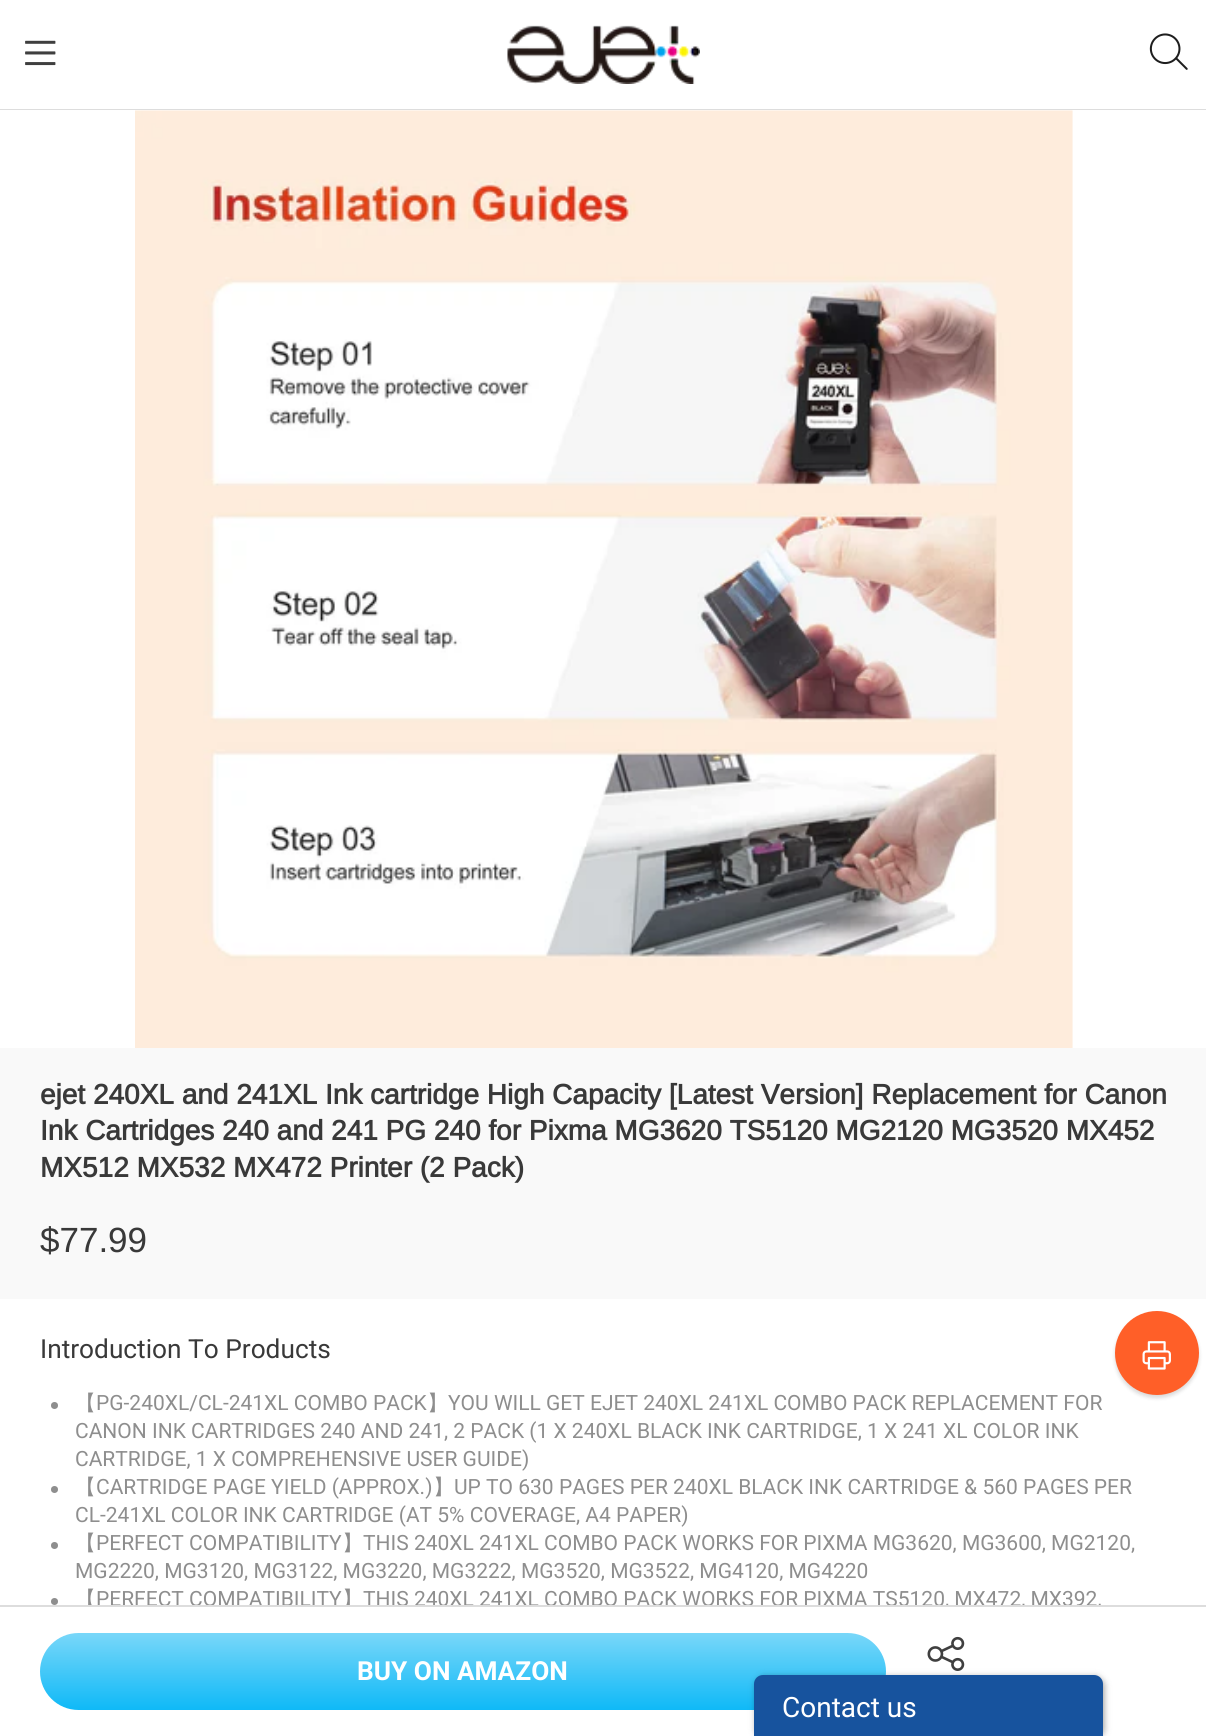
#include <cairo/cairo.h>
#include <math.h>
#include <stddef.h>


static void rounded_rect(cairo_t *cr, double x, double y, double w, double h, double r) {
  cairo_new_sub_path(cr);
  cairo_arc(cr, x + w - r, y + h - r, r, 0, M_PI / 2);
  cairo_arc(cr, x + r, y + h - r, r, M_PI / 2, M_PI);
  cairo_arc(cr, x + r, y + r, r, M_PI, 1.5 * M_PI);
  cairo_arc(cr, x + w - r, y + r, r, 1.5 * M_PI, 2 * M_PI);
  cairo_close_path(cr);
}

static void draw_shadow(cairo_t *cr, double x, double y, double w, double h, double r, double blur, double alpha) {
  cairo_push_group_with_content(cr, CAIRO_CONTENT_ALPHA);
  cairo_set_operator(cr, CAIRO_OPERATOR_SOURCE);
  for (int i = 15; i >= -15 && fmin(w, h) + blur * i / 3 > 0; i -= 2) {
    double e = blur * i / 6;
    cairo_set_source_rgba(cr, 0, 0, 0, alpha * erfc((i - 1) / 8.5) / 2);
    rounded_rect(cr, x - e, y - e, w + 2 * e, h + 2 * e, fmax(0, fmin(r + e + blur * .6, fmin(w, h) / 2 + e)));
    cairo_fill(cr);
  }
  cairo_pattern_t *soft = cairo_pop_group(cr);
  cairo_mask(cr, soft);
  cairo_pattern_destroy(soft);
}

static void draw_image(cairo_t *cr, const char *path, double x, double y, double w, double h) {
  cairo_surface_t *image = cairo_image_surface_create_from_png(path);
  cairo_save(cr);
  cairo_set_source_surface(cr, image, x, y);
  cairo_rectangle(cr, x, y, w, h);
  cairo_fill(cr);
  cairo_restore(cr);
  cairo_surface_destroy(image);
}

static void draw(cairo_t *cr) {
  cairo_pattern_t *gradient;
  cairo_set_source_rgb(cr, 1, 1, 1);
  cairo_paint(cr);
  cairo_set_source_rgb(cr, 221 / 255.0, 221 / 255.0, 221 / 255.0);
  cairo_rectangle(cr, 0, 109, 1206, 1);
  cairo_fill(cr);
  draw_image(cr, "images/1.png", 25, 40, 31, 26);
  draw_image(cr, "images/2.png", 507, 25, 193, 59);
  draw_image(cr, "images/3.png", 1149, 33, 39, 37);
  cairo_set_source_rgb(cr, 249 / 255.0, 249 / 255.0, 249 / 255.0);
  cairo_rectangle(cr, 0, 1048, 1206, 251);
  cairo_fill(cr);
  draw_image(cr, "images/4.png", 135, 110, 938, 938);
  gradient = cairo_pattern_create_linear(463, 1710, 463, 1633);
  cairo_pattern_add_color_stop_rgba(gradient, 0, 15 / 255.0, 185 / 255.0, 247 / 255.0, 1);
  cairo_pattern_add_color_stop_rgba(gradient, 1, 121 / 255.0, 215 / 255.0, 249 / 255.0, 1);
  cairo_set_source(cr, gradient);
  cairo_pattern_destroy(gradient);
  rounded_rect(cr, 40, 1633, 846, 77, 38.5);
  cairo_fill(cr);
  draw_image(cr, "images/5.png", 927, 1636, 38, 35);
  cairo_set_source_rgb(cr, 142 / 255.0, 142 / 255.0, 142 / 255.0);
  cairo_arc(cr, 54.5, 1405.5, 3.5, 0, 2 * M_PI);
  cairo_fill(cr);
  cairo_arc(cr, 54.5, 1489.5, 3.5, 0, 2 * M_PI);
  cairo_fill(cr);
  cairo_arc(cr, 54.5, 1545.5, 3.5, 0, 2 * M_PI);
  cairo_fill(cr);
  cairo_arc(cr, 54.5, 1601.5, 3.5, 0, 2 * M_PI);
  cairo_fill(cr);
  cairo_set_source_rgb(cr, 0, 0, 0);
  draw_shadow(cr, 1115, 1314, 84, 84, 42, 2, 0.15);
  cairo_set_source_rgb(cr, 1, 95 / 255.0, 40 / 255.0);
  cairo_arc(cr, 1157, 1353, 42, 0, 2 * M_PI);
  cairo_fill(cr);
  draw_image(cr, "images/6.png", 1142, 1341, 29, 29);
  cairo_set_source_rgb(cr, 0, 0, 0);
  draw_shadow(cr, 756, 1677, 348, 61, 9, 3.5, 0.4);
  cairo_set_source_rgb(cr, 23 / 255.0, 83 / 255.0, 158 / 255.0);
  cairo_new_path(cr);
  cairo_move_to(cr, 763, 1675);
  cairo_line_to(cr, 1094, 1675);
  cairo_curve_to(cr, 1099, 1675, 1103, 1679, 1103, 1684);
  cairo_line_to(cr, 1103, 1736);
  cairo_line_to(cr, 754, 1736);
  cairo_line_to(cr, 754, 1684);
  cairo_curve_to(cr, 754, 1679, 758, 1675, 763, 1675);
  cairo_close_path(cr);
  cairo_fill(cr);
  cairo_select_font_face(cr, "Arimo", CAIRO_FONT_SLANT_NORMAL, CAIRO_FONT_WEIGHT_BOLD);
  cairo_set_font_size(cr, 28);
  cairo_set_source_rgb(cr, 57 / 255.0, 57 / 255.0, 57 / 255.0);
  cairo_move_to(cr, 40, 1104);
  cairo_show_text(cr, "ejet 240XL and 241XL Ink cartridge High Capacity [Latest Version] Replacement for Canon");
  cairo_move_to(cr, 40, 1140);
  cairo_show_text(cr, "Ink Cartridges 240 and 241 PG 240 for Pixma MG3620 TS5120 MG2120 MG3520 MX452");
  cairo_move_to(cr, 40, 1177);
  cairo_show_text(cr, "MX512 MX532 MX472 Printer (2 Pack)");
  cairo_select_font_face(cr, "Arimo", CAIRO_FONT_SLANT_NORMAL, CAIRO_FONT_WEIGHT_NORMAL);
  cairo_set_font_size(cr, 35);
  cairo_move_to(cr, 40, 1252);
  cairo_show_text(cr, "$77.99");
  cairo_select_font_face(cr, "Roboto", CAIRO_FONT_SLANT_NORMAL, CAIRO_FONT_WEIGHT_BOLD);
  cairo_set_font_size(cr, 26.25);
  cairo_set_source_rgb(cr, 1, 1, 1);
  cairo_move_to(cr, 357, 1680);
  cairo_show_text(cr, "BUY ON AMAZON");
  cairo_select_font_face(cr, "Roboto", CAIRO_FONT_SLANT_NORMAL, CAIRO_FONT_WEIGHT_NORMAL);
  cairo_set_source_rgb(cr, 57 / 255.0, 57 / 255.0, 57 / 255.0);
  cairo_move_to(cr, 40, 1358);
  cairo_show_text(cr, "Introduction To Products");
  cairo_select_font_face(cr, "WenQuanYi Zen Hei Medium", CAIRO_FONT_SLANT_NORMAL, CAIRO_FONT_WEIGHT_NORMAL);
  cairo_set_font_size(cr, 21);
  cairo_set_source_rgb(cr, 142 / 255.0, 142 / 255.0, 142 / 255.0);
  cairo_move_to(cr, 75, 1410);
  cairo_show_text(cr, "【");
  cairo_select_font_face(cr, "Roboto", CAIRO_FONT_SLANT_NORMAL, CAIRO_FONT_WEIGHT_NORMAL);
  cairo_move_to(cr, 96, 1410);
  cairo_show_text(cr, "PG-240XL/CL-241XL COMBO PACK");
  cairo_select_font_face(cr, "WenQuanYi Zen Hei Medium", CAIRO_FONT_SLANT_NORMAL, CAIRO_FONT_WEIGHT_NORMAL);
  cairo_move_to(cr, 427, 1410);
  cairo_show_text(cr, "】");
  cairo_select_font_face(cr, "Roboto", CAIRO_FONT_SLANT_NORMAL, CAIRO_FONT_WEIGHT_NORMAL);
  cairo_move_to(cr, 448, 1410);
  cairo_show_text(cr, "YOU WILL GET EJET 240XL 241XL COMBO PACK REPLACEMENT FOR");
  cairo_move_to(cr, 75, 1438);
  cairo_show_text(cr, "CANON INK CARTRIDGES 240 AND 241, 2 PACK (1 X 240XL BLACK INK CARTRIDGE, 1 X 241 XL COLOR INK");
  cairo_move_to(cr, 75, 1466);
  cairo_show_text(cr, "CARTRIDGE, 1 X COMPREHENSIVE USER GUIDE)");
  cairo_select_font_face(cr, "WenQuanYi Zen Hei Medium", CAIRO_FONT_SLANT_NORMAL, CAIRO_FONT_WEIGHT_NORMAL);
  cairo_move_to(cr, 75, 1494);
  cairo_show_text(cr, "【");
  cairo_select_font_face(cr, "Roboto", CAIRO_FONT_SLANT_NORMAL, CAIRO_FONT_WEIGHT_NORMAL);
  cairo_move_to(cr, 96, 1494);
  cairo_show_text(cr, "CARTRIDGE PAGE YIELD (APPROX.)");
  cairo_select_font_face(cr, "WenQuanYi Zen Hei Medium", CAIRO_FONT_SLANT_NORMAL, CAIRO_FONT_WEIGHT_NORMAL);
  cairo_move_to(cr, 433, 1494);
  cairo_show_text(cr, "】");
  cairo_select_font_face(cr, "Roboto", CAIRO_FONT_SLANT_NORMAL, CAIRO_FONT_WEIGHT_NORMAL);
  cairo_move_to(cr, 454, 1494);
  cairo_show_text(cr, "UP TO 630 PAGES PER 240XL BLACK INK CARTRIDGE & 560 PAGES PER");
  cairo_move_to(cr, 75, 1522);
  cairo_show_text(cr, "CL-241XL COLOR INK CARTRIDGE (AT 5% COVERAGE, A4 PAPER)");
  cairo_select_font_face(cr, "WenQuanYi Zen Hei Medium", CAIRO_FONT_SLANT_NORMAL, CAIRO_FONT_WEIGHT_NORMAL);
  cairo_move_to(cr, 75, 1550);
  cairo_show_text(cr, "【");
  cairo_select_font_face(cr, "Roboto", CAIRO_FONT_SLANT_NORMAL, CAIRO_FONT_WEIGHT_NORMAL);
  cairo_move_to(cr, 96, 1550);
  cairo_show_text(cr, "PERFECT COMPATIBILITY");
  cairo_select_font_face(cr, "WenQuanYi Zen Hei Medium", CAIRO_FONT_SLANT_NORMAL, CAIRO_FONT_WEIGHT_NORMAL);
  cairo_move_to(cr, 342, 1550);
  cairo_show_text(cr, "】");
  cairo_select_font_face(cr, "Roboto", CAIRO_FONT_SLANT_NORMAL, CAIRO_FONT_WEIGHT_NORMAL);
  cairo_move_to(cr, 363, 1550);
  cairo_show_text(cr, "THIS 240XL 241XL COMBO PACK WORKS FOR PIXMA MG3620, MG3600, MG2120,");
  cairo_move_to(cr, 75, 1578);
  cairo_show_text(cr, "MG2220, MG3120, MG3122, MG3220, MG3222, MG3520, MG3522, MG4120, MG4220");
  cairo_select_font_face(cr, "WenQuanYi Zen Hei Medium", CAIRO_FONT_SLANT_NORMAL, CAIRO_FONT_WEIGHT_NORMAL);
  cairo_move_to(cr, 75, 1606);
  cairo_show_text(cr, "【");
  cairo_select_font_face(cr, "Roboto", CAIRO_FONT_SLANT_NORMAL, CAIRO_FONT_WEIGHT_NORMAL);
  cairo_move_to(cr, 96, 1606);
  cairo_show_text(cr, "PERFECT COMPATIBILITY");
  cairo_select_font_face(cr, "WenQuanYi Zen Hei Medium", CAIRO_FONT_SLANT_NORMAL, CAIRO_FONT_WEIGHT_NORMAL);
  cairo_move_to(cr, 342, 1606);
  cairo_show_text(cr, "】");
  cairo_select_font_face(cr, "Roboto", CAIRO_FONT_SLANT_NORMAL, CAIRO_FONT_WEIGHT_NORMAL);
  cairo_move_to(cr, 363, 1606);
  cairo_show_text(cr, "THIS 240XL 241XL COMBO PACK WORKS FOR PIXMA TS5120, MX472, MX392,");
  cairo_set_source_rgb(cr, 221 / 255.0, 221 / 255.0, 221 / 255.0);
  cairo_rectangle(cr, 0, 1605, 1206, 2);
  cairo_fill(cr);
  cairo_set_source_rgb(cr, 1, 1, 1);
  cairo_rectangle(cr, 88, 1607, 1013, 2);
  cairo_fill(cr);
  cairo_set_font_size(cr, 28);
  cairo_move_to(cr, 782, 1717);
  cairo_show_text(cr, "Contact us");
}

int main(void) {
  cairo_surface_t *surface = cairo_image_surface_create(CAIRO_FORMAT_RGB24, 1206, 1736);
  cairo_t *cr = cairo_create(surface);
  cairo_font_options_t *options = cairo_font_options_create();
  cairo_font_options_set_hint_metrics(options, CAIRO_HINT_METRICS_OFF);
  cairo_font_options_set_hint_style(options, CAIRO_HINT_STYLE_NONE);
  cairo_set_font_options(cr, options);
  cairo_set_miter_limit(cr, 4);
  draw(cr);
  cairo_surface_write_to_png(surface, "out.png");
  cairo_font_options_destroy(options);
  cairo_destroy(cr);
  cairo_surface_destroy(surface);
  return 0;
}
